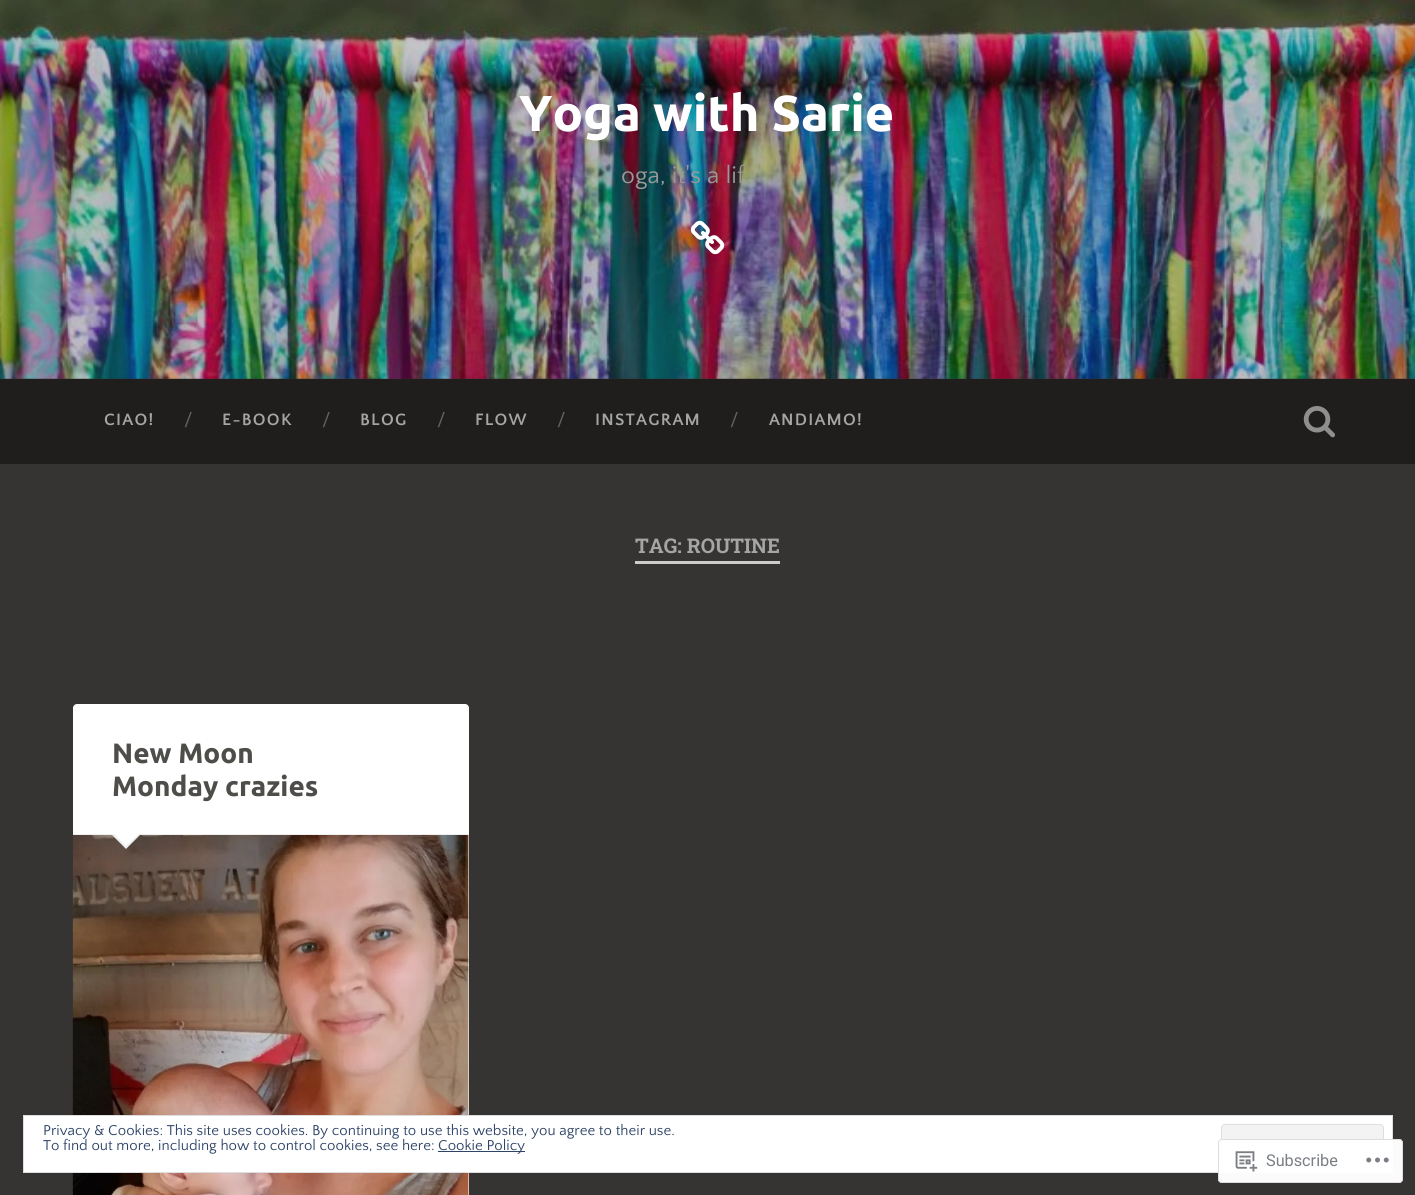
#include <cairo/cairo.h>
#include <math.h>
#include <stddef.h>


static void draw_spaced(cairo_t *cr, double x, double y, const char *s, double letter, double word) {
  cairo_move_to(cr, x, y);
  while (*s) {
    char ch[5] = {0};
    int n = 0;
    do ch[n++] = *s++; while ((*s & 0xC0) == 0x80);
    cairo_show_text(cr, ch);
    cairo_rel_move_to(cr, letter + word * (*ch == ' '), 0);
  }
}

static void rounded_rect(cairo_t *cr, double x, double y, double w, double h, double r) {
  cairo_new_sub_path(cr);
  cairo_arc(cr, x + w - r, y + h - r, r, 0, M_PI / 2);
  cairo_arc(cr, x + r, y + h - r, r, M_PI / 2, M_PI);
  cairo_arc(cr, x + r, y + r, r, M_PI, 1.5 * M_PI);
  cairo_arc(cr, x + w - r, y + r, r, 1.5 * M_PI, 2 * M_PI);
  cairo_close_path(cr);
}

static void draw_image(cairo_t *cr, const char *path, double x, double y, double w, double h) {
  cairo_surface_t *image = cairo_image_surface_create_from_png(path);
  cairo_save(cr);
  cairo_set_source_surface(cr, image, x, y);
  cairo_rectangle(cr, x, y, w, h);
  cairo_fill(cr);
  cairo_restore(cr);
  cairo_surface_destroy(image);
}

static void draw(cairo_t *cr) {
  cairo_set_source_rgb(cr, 53 / 255.0, 52 / 255.0, 50 / 255.0);
  cairo_paint(cr);
  draw_image(cr, "images/1.png", 0, 0, 1415, 379);
  draw_image(cr, "images/2.png", 690, 220, 35, 35);
  cairo_set_source_rgb(cr, 31 / 255.0, 30 / 255.0, 29 / 255.0);
  cairo_rectangle(cr, 0, 379, 1415, 85);
  cairo_fill(cr);
  draw_image(cr, "images/3.png", 1303, 406, 32, 32);
  cairo_set_source_rgb(cr, 204 / 255.0, 204 / 255.0, 204 / 255.0);
  cairo_rectangle(cr, 635, 561, 145, 3);
  cairo_fill(cr);
  cairo_set_source_rgb(cr, 1, 1, 1);
  rounded_rect(cr, 73, 704, 396, 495, 4);
  cairo_fill(cr);
  cairo_set_source_rgb(cr, 238 / 255.0, 238 / 255.0, 238 / 255.0);
  cairo_rectangle(cr, 73, 834, 396, 1);
  cairo_fill(cr);
  draw_image(cr, "images/4.png", 72, 835, 397, 360);
  cairo_new_path(cr);
  cairo_move_to(cr, 111, 834);
  cairo_line_to(cr, 141, 834);
  cairo_line_to(cr, 126, 849);
  cairo_close_path(cr);
  cairo_fill(cr);
  cairo_set_source_rgb(cr, 1, 1, 1);
  cairo_new_path(cr);
  cairo_move_to(cr, 112.5, 832.5);
  cairo_line_to(cr, 140, 832.5);
  cairo_line_to(cr, 126, 846);
  cairo_close_path(cr);
  cairo_fill(cr);
  cairo_rectangle(cr, 23.5, 1115.5, 1369, 57);
  cairo_fill_preserve(cr);
  cairo_set_source_rgb(cr, 222 / 255.0, 222 / 255.0, 222 / 255.0);
  cairo_set_line_width(cr, 1);
  cairo_stroke(cr);
  cairo_set_source_rgb(cr, 243 / 255.0, 243 / 255.0, 243 / 255.0);
  rounded_rect(cr, 1221.5, 1124.5, 162, 39, 3.5);
  cairo_fill_preserve(cr);
  cairo_set_source_rgb(cr, 222 / 255.0, 222 / 255.0, 222 / 255.0);
  cairo_stroke(cr);
  cairo_set_source_rgb(cr, 46 / 255.0, 68 / 255.0, 103 / 255.0);
  cairo_rectangle(cr, 438, 1151, 87, 1);
  cairo_fill(cr);
  cairo_set_source_rgba(cr, 1, 1, 1, 0.98);
  rounded_rect(cr, 1218, 1139, 185, 44, 4);
  cairo_fill(cr);
  rounded_rect(cr, 1218.5, 1139.5, 184, 43, 3.5);
  cairo_set_source_rgba(cr, 220 / 255.0, 220 / 255.0, 222 / 255.0, 0.98);
  cairo_stroke(cr);
  draw_image(cr, "images/5.png", 1235, 1151, 23, 21);
  draw_image(cr, "images/6.png", 1366, 1157, 23, 6);
  cairo_select_font_face(cr, "Ubuntu", CAIRO_FONT_SLANT_NORMAL, CAIRO_FONT_WEIGHT_BOLD);
  cairo_set_font_size(cr, 50.5);
  cairo_set_source_rgb(cr, 1, 1, 1);
  cairo_move_to(cr, 519, 131);
  cairo_show_text(cr, "Yoga with Sarie");
  cairo_select_font_face(cr, "Quattrocento Sans", CAIRO_FONT_SLANT_NORMAL, CAIRO_FONT_WEIGHT_NORMAL);
  cairo_set_font_size(cr, 24.75);
  cairo_set_source_rgb(cr, 153 / 255.0, 153 / 255.0, 153 / 255.0);
  cairo_move_to(cr, 621, 183);
  cairo_show_text(cr, "oga, it's a lif");
  cairo_select_font_face(cr, "Quattrocento Sans", CAIRO_FONT_SLANT_NORMAL, CAIRO_FONT_WEIGHT_BOLD);
  cairo_set_font_size(cr, 17.25);
  cairo_set_source_rgb(cr, 165 / 255.0, 165 / 255.0, 165 / 255.0);
  draw_spaced(cr, 104, 425, "CIAO!", 1.25, 0);
  cairo_select_font_face(cr, "Quattrocento Sans", CAIRO_FONT_SLANT_NORMAL, CAIRO_FONT_WEIGHT_NORMAL);
  cairo_set_font_size(cr, 20);
  cairo_set_source_rgb(cr, 98 / 255.0, 98 / 255.0, 97 / 255.0);
  cairo_move_to(cr, 184, 426);
  cairo_show_text(cr, "/");
  cairo_select_font_face(cr, "Quattrocento Sans", CAIRO_FONT_SLANT_NORMAL, CAIRO_FONT_WEIGHT_BOLD);
  cairo_set_font_size(cr, 17.25);
  cairo_set_source_rgb(cr, 165 / 255.0, 165 / 255.0, 165 / 255.0);
  draw_spaced(cr, 222, 425, "E-BOOK", 1.25, 0);
  cairo_select_font_face(cr, "Quattrocento Sans", CAIRO_FONT_SLANT_NORMAL, CAIRO_FONT_WEIGHT_NORMAL);
  cairo_set_font_size(cr, 20);
  cairo_set_source_rgb(cr, 98 / 255.0, 98 / 255.0, 97 / 255.0);
  cairo_move_to(cr, 322, 426);
  cairo_show_text(cr, "/");
  cairo_select_font_face(cr, "Quattrocento Sans", CAIRO_FONT_SLANT_NORMAL, CAIRO_FONT_WEIGHT_BOLD);
  cairo_set_font_size(cr, 17.25);
  cairo_set_source_rgb(cr, 165 / 255.0, 165 / 255.0, 165 / 255.0);
  draw_spaced(cr, 360, 425, "BLOG", 1.25, 0);
  cairo_select_font_face(cr, "Quattrocento Sans", CAIRO_FONT_SLANT_NORMAL, CAIRO_FONT_WEIGHT_NORMAL);
  cairo_set_font_size(cr, 20);
  cairo_set_source_rgb(cr, 98 / 255.0, 98 / 255.0, 97 / 255.0);
  cairo_move_to(cr, 437, 426);
  cairo_show_text(cr, "/");
  cairo_select_font_face(cr, "Quattrocento Sans", CAIRO_FONT_SLANT_NORMAL, CAIRO_FONT_WEIGHT_BOLD);
  cairo_set_font_size(cr, 17.25);
  cairo_set_source_rgb(cr, 165 / 255.0, 165 / 255.0, 165 / 255.0);
  draw_spaced(cr, 475, 425, "FLOW", 1.25, 0);
  cairo_select_font_face(cr, "Quattrocento Sans", CAIRO_FONT_SLANT_NORMAL, CAIRO_FONT_WEIGHT_NORMAL);
  cairo_set_font_size(cr, 20);
  cairo_set_source_rgb(cr, 98 / 255.0, 98 / 255.0, 97 / 255.0);
  cairo_move_to(cr, 557, 426);
  cairo_show_text(cr, "/");
  cairo_select_font_face(cr, "Quattrocento Sans", CAIRO_FONT_SLANT_NORMAL, CAIRO_FONT_WEIGHT_BOLD);
  cairo_set_font_size(cr, 17.25);
  cairo_set_source_rgb(cr, 165 / 255.0, 165 / 255.0, 165 / 255.0);
  draw_spaced(cr, 595, 425, "INSTAGRAM", 1.25, 0);
  cairo_select_font_face(cr, "Quattrocento Sans", CAIRO_FONT_SLANT_NORMAL, CAIRO_FONT_WEIGHT_NORMAL);
  cairo_set_font_size(cr, 20);
  cairo_set_source_rgb(cr, 98 / 255.0, 98 / 255.0, 97 / 255.0);
  cairo_move_to(cr, 730, 426);
  cairo_show_text(cr, "/");
  cairo_select_font_face(cr, "Quattrocento Sans", CAIRO_FONT_SLANT_NORMAL, CAIRO_FONT_WEIGHT_BOLD);
  cairo_set_font_size(cr, 17.25);
  cairo_set_source_rgb(cr, 165 / 255.0, 165 / 255.0, 165 / 255.0);
  draw_spaced(cr, 769, 425, "ANDIAMO!", 1.25, 0);
  cairo_select_font_face(cr, "Roboto Slab", CAIRO_FONT_SLANT_NORMAL, CAIRO_FONT_WEIGHT_BOLD);
  cairo_set_font_size(cr, 20.25);
  cairo_move_to(cr, 635, 553);
  cairo_show_text(cr, "TAG: ROUTINE");
  cairo_select_font_face(cr, "Ubuntu", CAIRO_FONT_SLANT_NORMAL, CAIRO_FONT_WEIGHT_BOLD);
  cairo_set_font_size(cr, 28);
  cairo_set_source_rgb(cr, 78 / 255.0, 77 / 255.0, 74 / 255.0);
  cairo_move_to(cr, 112, 763);
  cairo_show_text(cr, "New Moon");
  cairo_move_to(cr, 112, 796);
  cairo_show_text(cr, "Monday crazies");
  cairo_select_font_face(cr, "Quattrocento Sans", CAIRO_FONT_SLANT_NORMAL, CAIRO_FONT_WEIGHT_NORMAL);
  cairo_set_font_size(cr, 15);
  cairo_set_source_rgb(cr, 46 / 255.0, 68 / 255.0, 103 / 255.0);
  cairo_move_to(cr, 43, 1135);
  cairo_show_text(cr, "Privacy & Cookies: This site uses cookies. By continuing to use this website, you agree to their use.");
  cairo_move_to(cr, 43, 1150);
  cairo_show_text(cr, "To find out more, including how to control cookies, see here:");
  cairo_move_to(cr, 438, 1150);
  cairo_show_text(cr, "Cookie Policy");
  cairo_select_font_face(cr, "Roboto", CAIRO_FONT_SLANT_NORMAL, CAIRO_FONT_WEIGHT_NORMAL);
  cairo_set_font_size(cr, 16.25);
  cairo_set_source_rgb(cr, 123 / 255.0, 127 / 255.0, 132 / 255.0);
  cairo_move_to(cr, 1266, 1166);
  cairo_show_text(cr, "Subscribe");
}

int main(void) {
  cairo_surface_t *surface = cairo_image_surface_create(CAIRO_FORMAT_RGB24, 1415, 1195);
  cairo_t *cr = cairo_create(surface);
  cairo_font_options_t *options = cairo_font_options_create();
  cairo_font_options_set_hint_metrics(options, CAIRO_HINT_METRICS_OFF);
  cairo_font_options_set_hint_style(options, CAIRO_HINT_STYLE_NONE);
  cairo_set_font_options(cr, options);
  cairo_set_miter_limit(cr, 4);
  draw(cr);
  cairo_surface_write_to_png(surface, "out.png");
  cairo_font_options_destroy(options);
  cairo_destroy(cr);
  cairo_surface_destroy(surface);
  return 0;
}
